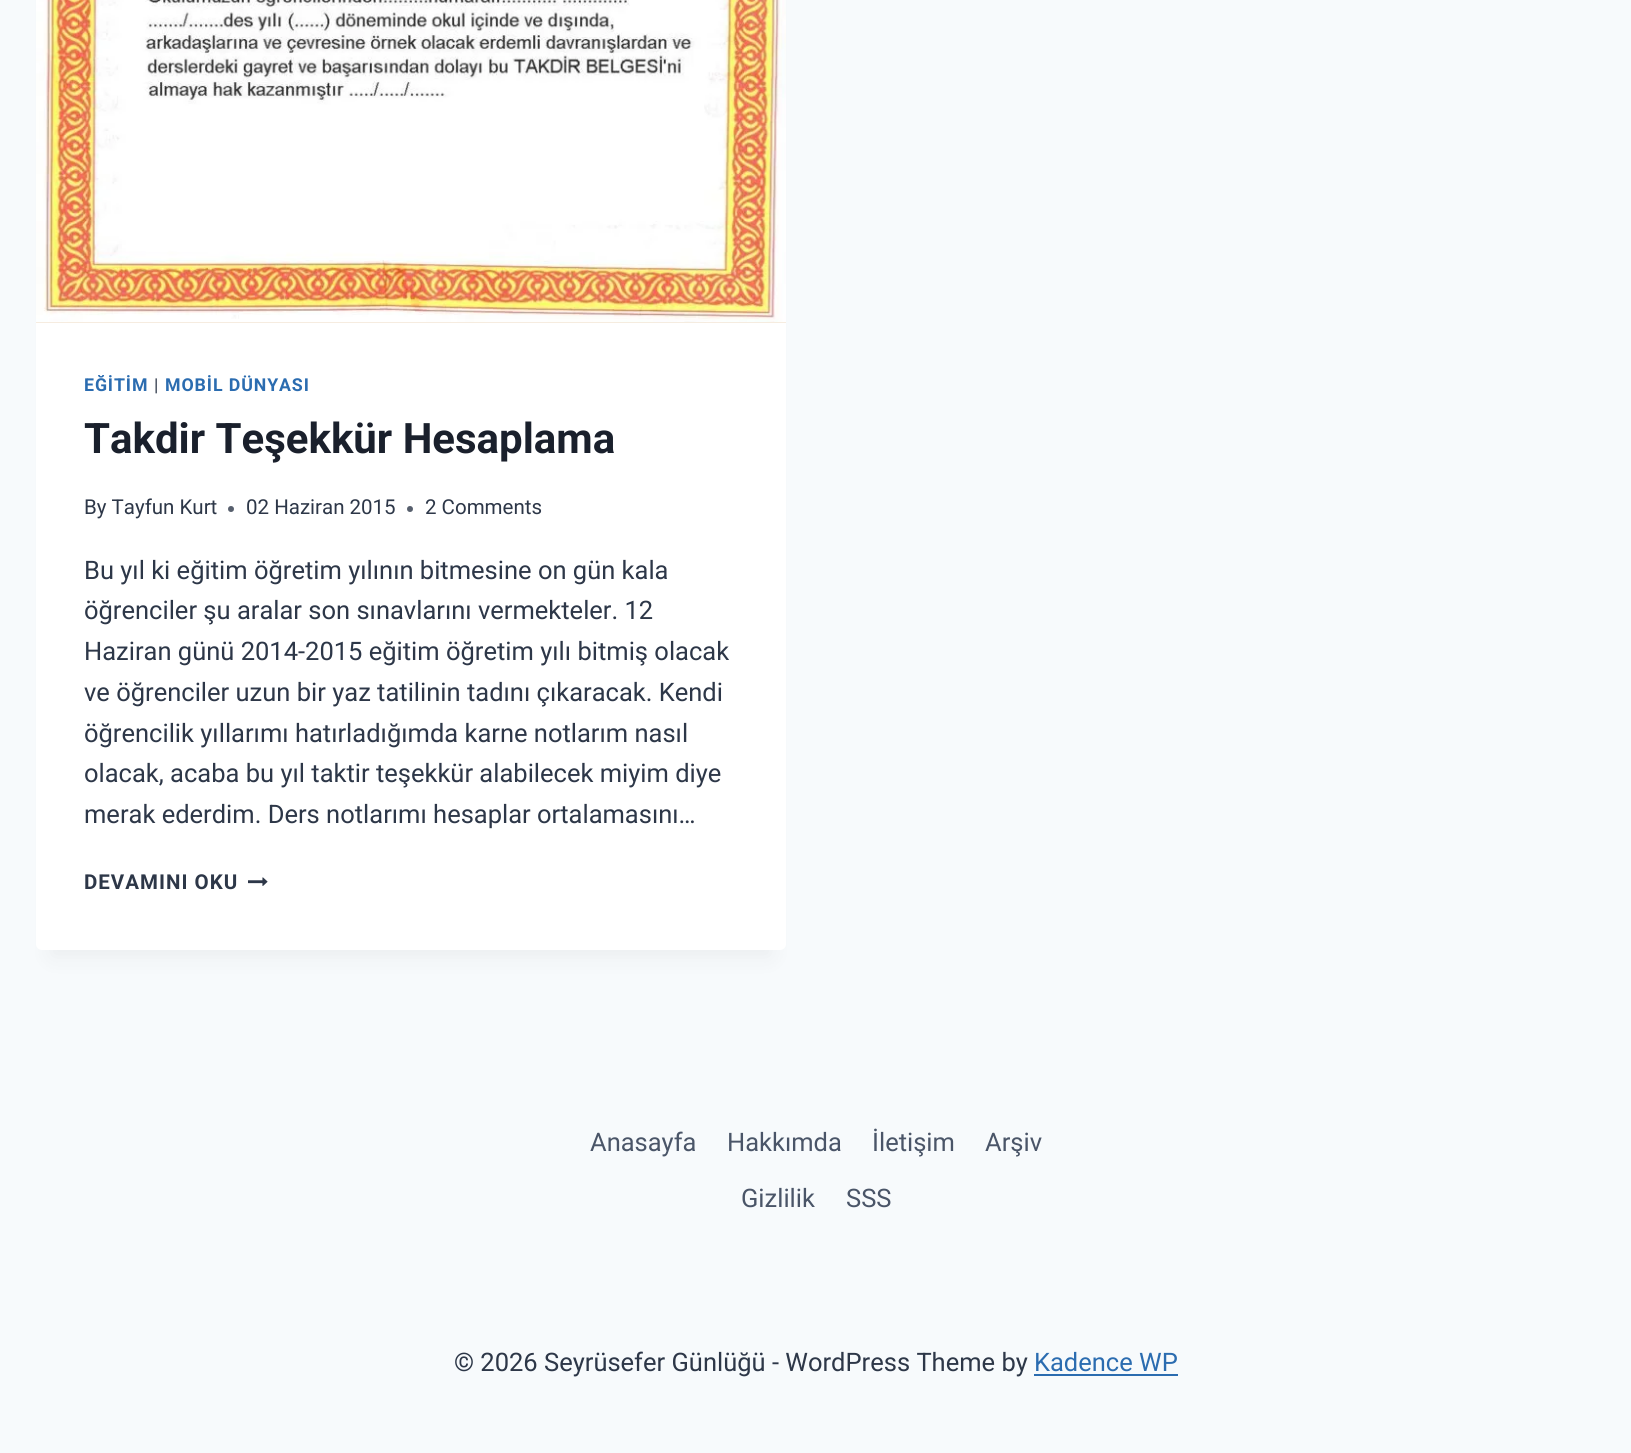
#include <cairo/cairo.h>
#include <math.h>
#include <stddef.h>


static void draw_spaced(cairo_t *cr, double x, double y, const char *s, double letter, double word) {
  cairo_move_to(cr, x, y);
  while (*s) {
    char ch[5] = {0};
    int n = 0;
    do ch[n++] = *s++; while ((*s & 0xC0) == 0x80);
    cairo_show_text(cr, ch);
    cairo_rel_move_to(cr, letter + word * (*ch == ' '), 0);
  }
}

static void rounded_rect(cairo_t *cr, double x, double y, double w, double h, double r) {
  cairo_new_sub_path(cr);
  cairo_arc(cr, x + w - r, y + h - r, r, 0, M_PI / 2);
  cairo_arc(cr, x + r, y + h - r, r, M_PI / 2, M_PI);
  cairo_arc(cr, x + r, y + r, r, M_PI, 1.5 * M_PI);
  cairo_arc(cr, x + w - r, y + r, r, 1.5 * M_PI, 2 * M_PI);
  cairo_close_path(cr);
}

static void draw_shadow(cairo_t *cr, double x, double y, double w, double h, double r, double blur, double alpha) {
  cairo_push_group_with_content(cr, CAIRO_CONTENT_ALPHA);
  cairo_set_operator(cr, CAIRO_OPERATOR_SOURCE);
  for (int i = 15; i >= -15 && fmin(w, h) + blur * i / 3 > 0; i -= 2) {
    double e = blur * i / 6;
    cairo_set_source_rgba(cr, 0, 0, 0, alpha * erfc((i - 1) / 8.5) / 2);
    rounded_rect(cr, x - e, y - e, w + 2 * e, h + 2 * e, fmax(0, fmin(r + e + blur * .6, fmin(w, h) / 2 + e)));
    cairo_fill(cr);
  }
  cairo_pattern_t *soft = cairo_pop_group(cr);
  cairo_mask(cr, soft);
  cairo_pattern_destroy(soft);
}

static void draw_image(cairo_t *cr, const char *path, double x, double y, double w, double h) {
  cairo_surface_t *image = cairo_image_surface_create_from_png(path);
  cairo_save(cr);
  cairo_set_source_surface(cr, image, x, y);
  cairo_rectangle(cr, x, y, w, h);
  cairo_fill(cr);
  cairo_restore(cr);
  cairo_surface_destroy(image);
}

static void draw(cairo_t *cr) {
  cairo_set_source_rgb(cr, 247 / 255.0, 250 / 255.0, 252 / 255.0);
  cairo_paint(cr);
  cairo_set_source_rgb(cr, 0, 0, 0);
  draw_shadow(cr, 51, -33, 720, 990, 0, 11, 0.05);
  cairo_set_source_rgb(cr, 1, 1, 1);
  rounded_rect(cr, 36, -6, 750, 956, 6);
  cairo_fill(cr);
  cairo_set_source_rgb(cr, 243 / 255.0, 229 / 255.0, 213 / 255.0);
  cairo_rectangle(cr, 36, 322, 750, 1);
  cairo_fill(cr);
  draw_image(cr, "images/1.png", 36, 0, 750, 323);
  cairo_set_source_rgb(cr, 87 / 255.0, 95 / 255.0, 109 / 255.0);
  cairo_arc(cr, 231, 509, 3, 0, 2 * M_PI);
  cairo_fill(cr);
  cairo_arc(cr, 410, 509, 3, 0, 2 * M_PI);
  cairo_fill(cr);
  draw_image(cr, "images/2.png", 248, 877, 20, 9);
  cairo_set_source_rgb(cr, 43 / 255.0, 108 / 255.0, 176 / 255.0);
  cairo_rectangle(cr, 1034, 1374, 144, 2);
  cairo_fill(cr);
  cairo_select_font_face(cr, "Roboto", CAIRO_FONT_SLANT_NORMAL, CAIRO_FONT_WEIGHT_BOLD);
  cairo_set_font_size(cr, 17.75);
  draw_spaced(cr, 84, 391, "EĞİTİM", 0.9, 0);
  cairo_select_font_face(cr, "Roboto", CAIRO_FONT_SLANT_NORMAL, CAIRO_FONT_WEIGHT_NORMAL);
  cairo_set_source_rgb(cr, 45 / 255.0, 55 / 255.0, 72 / 255.0);
  draw_spaced(cr, 154, 391, "|", 0.9, 0);
  cairo_select_font_face(cr, "Roboto", CAIRO_FONT_SLANT_NORMAL, CAIRO_FONT_WEIGHT_BOLD);
  cairo_set_source_rgb(cr, 43 / 255.0, 108 / 255.0, 176 / 255.0);
  draw_spaced(cr, 165, 391, "MOBİL DÜNYASI", 0.9, 0);
  cairo_set_font_size(cr, 42);
  cairo_set_source_rgb(cr, 26 / 255.0, 32 / 255.0, 44 / 255.0);
  cairo_move_to(cr, 84, 453);
  cairo_show_text(cr, "Takdir Teşekkür Hesaplama");
  cairo_select_font_face(cr, "Roboto", CAIRO_FONT_SLANT_NORMAL, CAIRO_FONT_WEIGHT_NORMAL);
  cairo_set_font_size(cr, 20.5);
  cairo_set_source_rgb(cr, 45 / 255.0, 55 / 255.0, 72 / 255.0);
  cairo_move_to(cr, 84, 514);
  cairo_show_text(cr, "By Tayfun Kurt");
  cairo_move_to(cr, 246, 514);
  cairo_show_text(cr, "02 Haziran 2015");
  cairo_move_to(cr, 425, 514);
  cairo_show_text(cr, "2 Comments");
  cairo_set_font_size(cr, 25.5);
  cairo_move_to(cr, 84, 579);
  cairo_show_text(cr, "Bu yıl ki eğitim öğretim yılının bitmesine on gün kala");
  cairo_move_to(cr, 84, 619);
  cairo_show_text(cr, "öğrenciler şu aralar son sınavlarını vermekteler. 12");
  cairo_move_to(cr, 84, 660);
  cairo_show_text(cr, "Haziran günü 2014-2015 eğitim öğretim yılı bitmiş olacak");
  cairo_move_to(cr, 84, 701);
  cairo_show_text(cr, "ve öğrenciler uzun bir yaz tatilinin tadını çıkaracak. Kendi");
  cairo_move_to(cr, 84, 742);
  cairo_show_text(cr, "öğrencilik yıllarımı hatırladığımda karne notlarım nasıl");
  cairo_move_to(cr, 84, 782);
  cairo_show_text(cr, "olacak, acaba bu yıl taktir teşekkür alabilecek miyim diye");
  cairo_move_to(cr, 84, 823);
  cairo_show_text(cr, "merak ederdim. Ders notlarımı hesaplar ortalamasını…");
  cairo_select_font_face(cr, "Roboto", CAIRO_FONT_SLANT_NORMAL, CAIRO_FONT_WEIGHT_BOLD);
  cairo_set_font_size(cr, 20.5);
  draw_spaced(cr, 84, 889, "DEVAMINI OKU", 1, 0);
  cairo_select_font_face(cr, "Roboto", CAIRO_FONT_SLANT_NORMAL, CAIRO_FONT_WEIGHT_NORMAL);
  cairo_set_font_size(cr, 25.5);
  cairo_set_source_rgb(cr, 74 / 255.0, 85 / 255.0, 104 / 255.0);
  cairo_move_to(cr, 590, 1151);
  cairo_show_text(cr, "Anasayfa");
  cairo_move_to(cr, 727, 1151);
  cairo_show_text(cr, "Hakkımda");
  cairo_move_to(cr, 872, 1151);
  cairo_show_text(cr, "İletişim");
  cairo_move_to(cr, 985, 1151);
  cairo_show_text(cr, "Arşiv");
  cairo_move_to(cr, 741, 1207);
  cairo_show_text(cr, "Gizlilik");
  cairo_move_to(cr, 846, 1207);
  cairo_show_text(cr, "SSS");
  cairo_set_source_rgb(cr, 45 / 255.0, 55 / 255.0, 72 / 255.0);
  cairo_move_to(cr, 454, 1371);
  cairo_show_text(cr, "© 2026 Seyrüsefer Günlüğü - WordPress Theme by");
  cairo_set_source_rgb(cr, 43 / 255.0, 108 / 255.0, 176 / 255.0);
  cairo_move_to(cr, 1034, 1371);
  cairo_show_text(cr, "Kadence WP");
}

int main(void) {
  cairo_surface_t *surface = cairo_image_surface_create(CAIRO_FORMAT_RGB24, 1631, 1453);
  cairo_t *cr = cairo_create(surface);
  cairo_font_options_t *options = cairo_font_options_create();
  cairo_font_options_set_hint_metrics(options, CAIRO_HINT_METRICS_OFF);
  cairo_font_options_set_hint_style(options, CAIRO_HINT_STYLE_NONE);
  cairo_set_font_options(cr, options);
  cairo_set_miter_limit(cr, 4);
  draw(cr);
  cairo_surface_write_to_png(surface, "out.png");
  cairo_font_options_destroy(options);
  cairo_destroy(cr);
  cairo_surface_destroy(surface);
  return 0;
}
